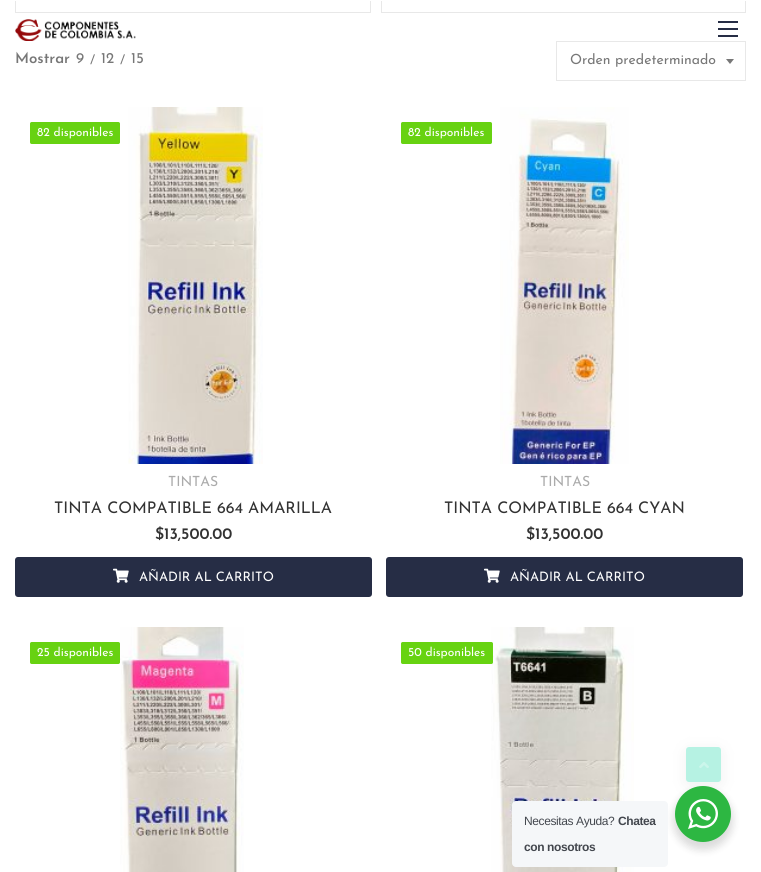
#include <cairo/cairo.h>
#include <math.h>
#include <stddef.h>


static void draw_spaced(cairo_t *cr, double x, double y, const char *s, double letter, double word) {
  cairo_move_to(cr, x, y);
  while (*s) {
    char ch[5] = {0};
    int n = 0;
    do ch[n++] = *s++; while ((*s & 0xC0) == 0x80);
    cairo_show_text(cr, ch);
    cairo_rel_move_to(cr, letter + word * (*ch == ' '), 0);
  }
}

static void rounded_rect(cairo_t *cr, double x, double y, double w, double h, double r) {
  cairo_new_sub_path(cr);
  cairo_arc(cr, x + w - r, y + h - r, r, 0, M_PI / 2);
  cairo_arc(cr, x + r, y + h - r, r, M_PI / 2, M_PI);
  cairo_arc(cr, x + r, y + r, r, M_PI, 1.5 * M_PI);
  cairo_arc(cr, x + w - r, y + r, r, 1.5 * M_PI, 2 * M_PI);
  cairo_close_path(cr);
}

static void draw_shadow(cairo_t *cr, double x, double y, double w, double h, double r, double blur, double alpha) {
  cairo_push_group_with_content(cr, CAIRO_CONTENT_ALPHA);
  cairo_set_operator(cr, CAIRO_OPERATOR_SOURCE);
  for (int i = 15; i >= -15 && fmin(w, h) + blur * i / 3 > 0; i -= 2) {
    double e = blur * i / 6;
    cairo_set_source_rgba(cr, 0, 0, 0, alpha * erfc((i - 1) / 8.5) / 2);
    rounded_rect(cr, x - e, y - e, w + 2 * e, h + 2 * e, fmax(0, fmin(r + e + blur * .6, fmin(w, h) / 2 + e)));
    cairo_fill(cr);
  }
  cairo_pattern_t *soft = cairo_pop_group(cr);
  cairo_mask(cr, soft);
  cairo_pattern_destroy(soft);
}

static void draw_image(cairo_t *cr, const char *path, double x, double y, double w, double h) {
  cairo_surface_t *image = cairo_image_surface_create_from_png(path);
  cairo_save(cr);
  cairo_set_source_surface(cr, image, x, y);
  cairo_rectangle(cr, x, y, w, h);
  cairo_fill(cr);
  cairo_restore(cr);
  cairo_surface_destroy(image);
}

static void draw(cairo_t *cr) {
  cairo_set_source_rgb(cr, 1, 1, 1);
  cairo_paint(cr);
  cairo_rectangle(cr, 15.5, -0.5, 355, 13);
  cairo_set_source_rgb(cr, 232 / 255.0, 232 / 255.0, 232 / 255.0);
  cairo_set_line_width(cr, 1);
  cairo_stroke(cr);
  cairo_rectangle(cr, 381.5, -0.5, 364, 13);
  cairo_stroke(cr);
  cairo_set_source_rgb(cr, 1, 1, 1);
  cairo_rectangle(cr, 15, 0, 731, 1);
  cairo_fill(cr);
  draw_image(cr, "images/1.png", 15, 19, 121, 22);
  cairo_set_source_rgb(cr, 38 / 255.0, 45 / 255.0, 69 / 255.0);
  cairo_rectangle(cr, 718, 21, 20, 2);
  cairo_fill(cr);
  cairo_rectangle(cr, 718, 28, 20, 2);
  cairo_fill(cr);
  cairo_rectangle(cr, 718, 35, 20, 2);
  cairo_fill(cr);
  cairo_rectangle(cr, 556.5, 41.5, 189, 39);
  cairo_set_source_rgb(cr, 232 / 255.0, 232 / 255.0, 232 / 255.0);
  cairo_stroke(cr);
  cairo_set_source_rgb(cr, 119 / 255.0, 119 / 255.0, 119 / 255.0);
  cairo_new_path(cr);
  cairo_move_to(cr, 726, 59);
  cairo_line_to(cr, 734, 59);
  cairo_line_to(cr, 730, 64);
  cairo_close_path(cr);
  cairo_fill(cr);
  cairo_set_source_rgb(cr, 129 / 255.0, 217 / 255.0, 57 / 255.0);
  rounded_rect(cr, 30, 122, 90, 22, 2);
  cairo_fill(cr);
  draw_image(cr, "images/2.png", 128, 107, 135, 357);
  cairo_set_source_rgba(cr, 97 / 255.0, 208 / 255.0, 8 / 255.0, 0.8);
  rounded_rect(cr, 30, 122, 90, 22, 2);
  cairo_fill(cr);
  cairo_set_source_rgb(cr, 38 / 255.0, 45 / 255.0, 69 / 255.0);
  rounded_rect(cr, 15, 557, 357, 40, 3);
  cairo_fill(cr);
  draw_image(cr, "images/3.png", 113, 568, 16, 15);
  cairo_set_source_rgb(cr, 129 / 255.0, 217 / 255.0, 57 / 255.0);
  rounded_rect(cr, 401, 122, 91, 22, 2);
  cairo_fill(cr);
  draw_image(cr, "images/4.png", 500, 107, 129, 357);
  cairo_set_source_rgba(cr, 97 / 255.0, 208 / 255.0, 8 / 255.0, 0.8);
  rounded_rect(cr, 401, 122, 91, 22, 2);
  cairo_fill(cr);
  cairo_set_source_rgb(cr, 38 / 255.0, 45 / 255.0, 69 / 255.0);
  rounded_rect(cr, 386, 557, 357, 40, 3);
  cairo_fill(cr);
  draw_image(cr, "images/3.png", 484, 568, 16, 15);
  cairo_set_source_rgb(cr, 129 / 255.0, 217 / 255.0, 57 / 255.0);
  rounded_rect(cr, 30, 642, 90, 22, 2);
  cairo_fill(cr);
  draw_image(cr, "images/5.png", 120, 627, 124, 245);
  cairo_set_source_rgba(cr, 97 / 255.0, 208 / 255.0, 8 / 255.0, 0.8);
  rounded_rect(cr, 30, 642, 90, 22, 2);
  cairo_fill(cr);
  draw_image(cr, "images/6.png", 491, 627, 143, 245);
  rounded_rect(cr, 401, 642, 92, 22, 2);
  cairo_fill(cr);
  rounded_rect(cr, 401, 642, 92, 22, 2);
  cairo_fill(cr);
  cairo_set_source_rgb(cr, 180 / 255.0, 180 / 255.0, 180 / 255.0);
  draw_shadow(cr, 686, 750, 35, 35, 3, 7.5, 0.2);
  cairo_set_source_rgb(cr, 182 / 255.0, 242 / 255.0, 227 / 255.0);
  rounded_rect(cr, 686, 747, 35, 35, 3);
  cairo_fill(cr);
  draw_image(cr, "images/7.png", 699, 762, 10, 6);
  cairo_set_source_rgb(cr, 0, 0, 0);
  draw_shadow(cr, 673, 790, 60, 60, 30, 4, 0.14);
  cairo_set_source_rgb(cr, 245 / 255.0, 247 / 255.0, 249 / 255.0);
  rounded_rect(cr, 512, 801, 156, 66, 4);
  cairo_fill(cr);
  cairo_set_source_rgb(cr, 45 / 255.0, 183 / 255.0, 66 / 255.0);
  cairo_arc(cr, 703, 814, 28, 0, 2 * M_PI);
  cairo_fill(cr);
  draw_image(cr, "images/8.png", 688, 799, 30, 30);
  cairo_select_font_face(cr, "Josefin Sans SemiBold", CAIRO_FONT_SLANT_NORMAL, CAIRO_FONT_WEIGHT_NORMAL);
  cairo_set_font_size(cr, 15);
  cairo_set_source_rgb(cr, 119 / 255.0, 119 / 255.0, 119 / 255.0);
  cairo_move_to(cr, 15, 63);
  cairo_show_text(cr, "Mostrar");
  cairo_select_font_face(cr, "Josefin Sans", CAIRO_FONT_SLANT_NORMAL, CAIRO_FONT_WEIGHT_NORMAL);
  cairo_move_to(cr, 76, 63);
  cairo_show_text(cr, "9");
  cairo_set_font_size(cr, 13);
  cairo_move_to(cr, 90, 64);
  cairo_show_text(cr, "/");
  cairo_set_font_size(cr, 15);
  cairo_move_to(cr, 101, 63);
  cairo_show_text(cr, "12");
  cairo_set_font_size(cr, 13);
  cairo_move_to(cr, 120, 64);
  cairo_show_text(cr, "/");
  cairo_set_font_size(cr, 15);
  cairo_move_to(cr, 131, 63);
  cairo_show_text(cr, "15");
  cairo_set_font_size(cr, 14);
  cairo_move_to(cr, 570, 64);
  cairo_show_text(cr, "Orden predeterminado");
  cairo_set_font_size(cr, 12);
  cairo_set_source_rgb(cr, 1, 1, 1);
  cairo_move_to(cr, 37, 136);
  cairo_show_text(cr, "82 disponibles");
  cairo_set_font_size(cr, 14);
  cairo_set_source_rgb(cr, 171 / 255.0, 171 / 255.0, 171 / 255.0);
  cairo_move_to(cr, 168, 486);
  cairo_show_text(cr, "TINTAS");
  cairo_set_font_size(cr, 16);
  cairo_set_source_rgb(cr, 50 / 255.0, 50 / 255.0, 50 / 255.0);
  cairo_move_to(cr, 54, 513);
  cairo_show_text(cr, "TINTA COMPATIBLE 664 AMARILLA");
  cairo_select_font_face(cr, "Josefin Sans SemiBold", CAIRO_FONT_SLANT_NORMAL, CAIRO_FONT_WEIGHT_NORMAL);
  cairo_move_to(cr, 155, 539);
  cairo_show_text(cr, "$13,500.00");
  cairo_select_font_face(cr, "Josefin Sans", CAIRO_FONT_SLANT_NORMAL, CAIRO_FONT_WEIGHT_NORMAL);
  cairo_set_font_size(cr, 13);
  cairo_set_source_rgb(cr, 1, 1, 1);
  cairo_move_to(cr, 139, 581);
  cairo_show_text(cr, "AÑADIR AL CARRITO");
  cairo_set_font_size(cr, 12);
  cairo_move_to(cr, 408, 136);
  cairo_show_text(cr, "82 disponibles");
  cairo_set_font_size(cr, 14);
  cairo_set_source_rgb(cr, 171 / 255.0, 171 / 255.0, 171 / 255.0);
  cairo_move_to(cr, 540, 486);
  cairo_show_text(cr, "TINTAS");
  cairo_set_font_size(cr, 16);
  cairo_set_source_rgb(cr, 50 / 255.0, 50 / 255.0, 50 / 255.0);
  cairo_move_to(cr, 444, 513);
  cairo_show_text(cr, "TINTA COMPATIBLE 664 CYAN");
  cairo_select_font_face(cr, "Josefin Sans SemiBold", CAIRO_FONT_SLANT_NORMAL, CAIRO_FONT_WEIGHT_NORMAL);
  cairo_move_to(cr, 526, 539);
  cairo_show_text(cr, "$13,500.00");
  cairo_select_font_face(cr, "Josefin Sans", CAIRO_FONT_SLANT_NORMAL, CAIRO_FONT_WEIGHT_NORMAL);
  cairo_set_font_size(cr, 13);
  cairo_set_source_rgb(cr, 1, 1, 1);
  cairo_move_to(cr, 510, 581);
  cairo_show_text(cr, "AÑADIR AL CARRITO");
  cairo_set_font_size(cr, 12);
  cairo_move_to(cr, 37, 656);
  cairo_show_text(cr, "25 disponibles");
  cairo_move_to(cr, 408, 656);
  cairo_show_text(cr, "50 disponibles");
  cairo_select_font_face(cr, "Liberation Sans", CAIRO_FONT_SLANT_NORMAL, CAIRO_FONT_WEIGHT_NORMAL);
  cairo_set_source_rgb(cr, 67 / 255.0, 71 / 255.0, 78 / 255.0);
  draw_spaced(cr, 524, 825, "Necesitas Ayuda?", -0.4, 0);
  cairo_select_font_face(cr, "Liberation Sans", CAIRO_FONT_SLANT_NORMAL, CAIRO_FONT_WEIGHT_BOLD);
  draw_spaced(cr, 618, 825, "Chatea", -0.4, 0);
  draw_spaced(cr, 524, 851, "con nosotros", -0.4, 0);
}

int main(void) {
  cairo_surface_t *surface = cairo_image_surface_create(CAIRO_FORMAT_RGB24, 761, 872);
  cairo_t *cr = cairo_create(surface);
  cairo_font_options_t *options = cairo_font_options_create();
  cairo_font_options_set_hint_metrics(options, CAIRO_HINT_METRICS_OFF);
  cairo_font_options_set_hint_style(options, CAIRO_HINT_STYLE_NONE);
  cairo_set_font_options(cr, options);
  cairo_set_miter_limit(cr, 4);
  draw(cr);
  cairo_surface_write_to_png(surface, "out.png");
  cairo_font_options_destroy(options);
  cairo_destroy(cr);
  cairo_surface_destroy(surface);
  return 0;
}
